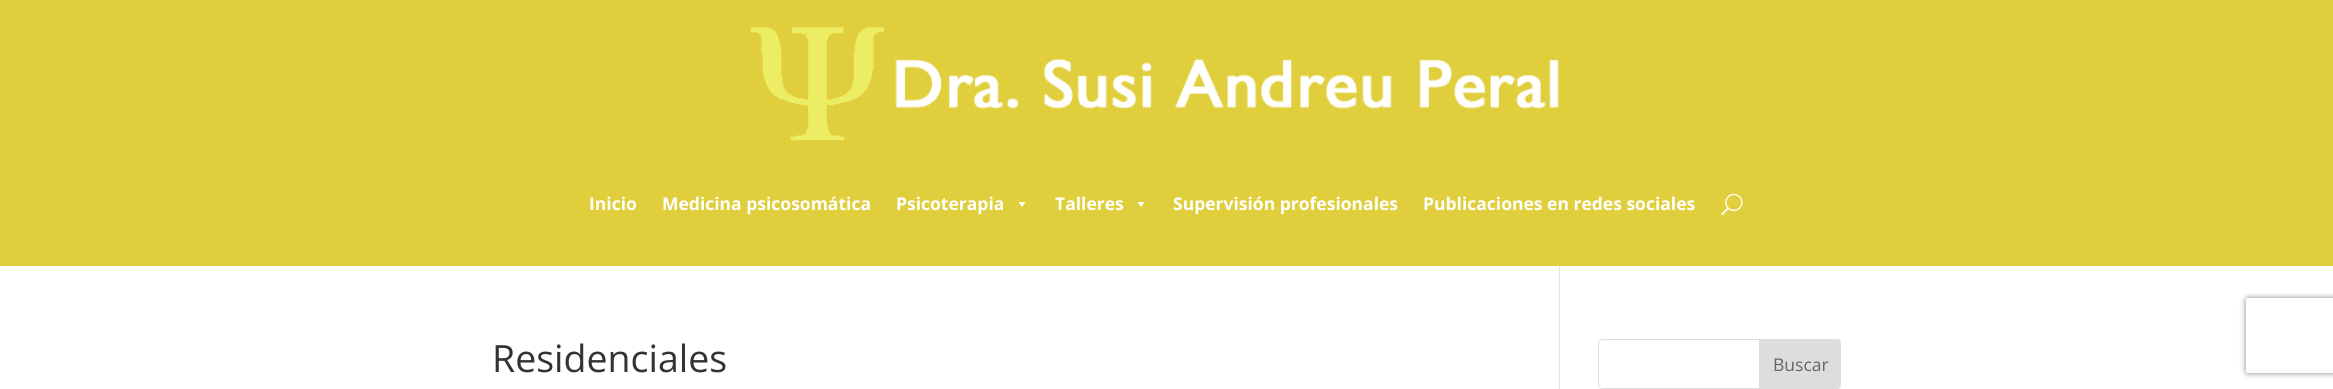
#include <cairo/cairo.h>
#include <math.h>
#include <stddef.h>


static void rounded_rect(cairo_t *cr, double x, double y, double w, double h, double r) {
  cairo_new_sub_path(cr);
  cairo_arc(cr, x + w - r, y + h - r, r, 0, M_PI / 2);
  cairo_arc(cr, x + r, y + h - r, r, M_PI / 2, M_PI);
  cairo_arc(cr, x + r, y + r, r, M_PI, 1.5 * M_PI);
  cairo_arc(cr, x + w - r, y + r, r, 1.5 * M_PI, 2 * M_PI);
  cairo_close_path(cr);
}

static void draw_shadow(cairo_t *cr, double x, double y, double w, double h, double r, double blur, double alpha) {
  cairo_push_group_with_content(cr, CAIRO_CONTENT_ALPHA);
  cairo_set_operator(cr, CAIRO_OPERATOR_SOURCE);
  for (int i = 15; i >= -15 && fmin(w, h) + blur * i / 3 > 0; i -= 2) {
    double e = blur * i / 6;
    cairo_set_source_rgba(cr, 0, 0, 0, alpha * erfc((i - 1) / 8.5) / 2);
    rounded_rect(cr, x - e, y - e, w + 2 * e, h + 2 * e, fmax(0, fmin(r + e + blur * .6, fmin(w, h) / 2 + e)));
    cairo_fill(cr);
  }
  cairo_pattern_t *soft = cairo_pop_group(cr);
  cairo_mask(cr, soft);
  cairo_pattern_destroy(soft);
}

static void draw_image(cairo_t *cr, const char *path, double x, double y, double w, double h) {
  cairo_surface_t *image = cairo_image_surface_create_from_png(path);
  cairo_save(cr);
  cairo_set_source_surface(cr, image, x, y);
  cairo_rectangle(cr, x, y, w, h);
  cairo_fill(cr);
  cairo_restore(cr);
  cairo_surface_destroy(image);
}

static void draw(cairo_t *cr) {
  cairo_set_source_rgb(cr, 1, 1, 1);
  cairo_paint(cr);
  cairo_set_source_rgb(cr, 224 / 255.0, 206 / 255.0, 60 / 255.0);
  cairo_rectangle(cr, 0, 0, 2333, 266);
  cairo_fill(cr);
  draw_image(cr, "images/1.png", 750, 27, 809, 114);
  cairo_set_source_rgb(cr, 1, 1, 1);
  cairo_new_path(cr);
  cairo_move_to(cr, 1025.5, 202);
  cairo_line_to(cr, 1022, 207);
  cairo_line_to(cr, 1018.5, 202);
  cairo_close_path(cr);
  cairo_fill(cr);
  cairo_new_path(cr);
  cairo_move_to(cr, 1144.5, 202);
  cairo_line_to(cr, 1141, 207);
  cairo_line_to(cr, 1137.5, 202);
  cairo_close_path(cr);
  cairo_fill(cr);
  draw_image(cr, "images/2.png", 1721, 193, 22, 23);
  cairo_set_source_rgb(cr, 226 / 255.0, 226 / 255.0, 226 / 255.0);
  cairo_rectangle(cr, 1559, 266, 1, 123);
  cairo_fill(cr);
  rounded_rect(cr, 1598.5, 339.5, 242, 49, 3.5);
  cairo_set_source_rgb(cr, 221 / 255.0, 221 / 255.0, 221 / 255.0);
  cairo_set_line_width(cr, 1);
  cairo_stroke(cr);
  cairo_new_path(cr);
  cairo_move_to(cr, 1759.5, 339.5);
  cairo_line_to(cr, 1837, 339.5);
  cairo_curve_to(cr, 1839, 339.5, 1840.5, 341, 1840.5, 343);
  cairo_line_to(cr, 1840.5, 385);
  cairo_curve_to(cr, 1840.5, 387, 1839, 388.5, 1837, 388.5);
  cairo_line_to(cr, 1759.5, 388.5);
  cairo_close_path(cr);
  cairo_fill_preserve(cr);
  cairo_stroke(cr);
  cairo_save(cr);
  cairo_set_fill_rule(cr, CAIRO_FILL_RULE_EVEN_ODD);
  cairo_new_path(cr);
  cairo_move_to(cr, 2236, 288);
  cairo_line_to(cr, 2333, 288);
  cairo_line_to(cr, 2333, 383);
  cairo_line_to(cr, 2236, 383);
  cairo_close_path(cr);
  cairo_move_to(cr, 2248.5, 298);
  cairo_line_to(cr, 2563.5, 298);
  cairo_curve_to(cr, 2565, 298, 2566, 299, 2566, 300.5);
  cairo_line_to(cr, 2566, 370.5);
  cairo_curve_to(cr, 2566, 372, 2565, 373, 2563.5, 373);
  cairo_line_to(cr, 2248.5, 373);
  cairo_curve_to(cr, 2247, 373, 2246, 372, 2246, 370.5);
  cairo_line_to(cr, 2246, 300.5);
  cairo_curve_to(cr, 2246, 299, 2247, 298, 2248.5, 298);
  cairo_close_path(cr);
  cairo_clip(cr);
  cairo_set_source_rgb(cr, 128 / 255.0, 128 / 255.0, 128 / 255.0);
  draw_shadow(cr, 2246, 298, 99, 75, 2.5, 3, 1);
  cairo_restore(cr);
  cairo_select_font_face(cr, "Open Sans", CAIRO_FONT_SLANT_NORMAL, CAIRO_FONT_WEIGHT_BOLD);
  cairo_set_font_size(cr, 17.5);
  cairo_set_source_rgb(cr, 1, 1, 1);
  cairo_move_to(cr, 589, 210);
  cairo_show_text(cr, "Inicio");
  cairo_move_to(cr, 662, 210);
  cairo_show_text(cr, "Medicina psicosomática");
  cairo_move_to(cr, 896, 210);
  cairo_show_text(cr, "Psicoterapia");
  cairo_move_to(cr, 1055, 210);
  cairo_show_text(cr, "Talleres");
  cairo_move_to(cr, 1173, 210);
  cairo_show_text(cr, "Supervisión profesionales");
  cairo_move_to(cr, 1423, 210);
  cairo_show_text(cr, "Publicaciones en redes sociales");
  cairo_select_font_face(cr, "Open Sans", CAIRO_FONT_SLANT_NORMAL, CAIRO_FONT_WEIGHT_NORMAL);
  cairo_set_font_size(cr, 37.5);
  cairo_set_source_rgb(cr, 51 / 255.0, 51 / 255.0, 51 / 255.0);
  cairo_move_to(cr, 492, 372);
  cairo_show_text(cr, "Residenciales");
  cairo_set_font_size(cr, 17.5);
  cairo_set_source_rgb(cr, 102 / 255.0, 102 / 255.0, 102 / 255.0);
  cairo_move_to(cr, 1773, 371);
  cairo_show_text(cr, "Buscar");
}

int main(void) {
  cairo_surface_t *surface = cairo_image_surface_create(CAIRO_FORMAT_RGB24, 2333, 389);
  cairo_t *cr = cairo_create(surface);
  cairo_font_options_t *options = cairo_font_options_create();
  cairo_font_options_set_hint_metrics(options, CAIRO_HINT_METRICS_OFF);
  cairo_font_options_set_hint_style(options, CAIRO_HINT_STYLE_NONE);
  cairo_set_font_options(cr, options);
  cairo_set_miter_limit(cr, 4);
  draw(cr);
  cairo_surface_write_to_png(surface, "out.png");
  cairo_font_options_destroy(options);
  cairo_destroy(cr);
  cairo_surface_destroy(surface);
  return 0;
}
